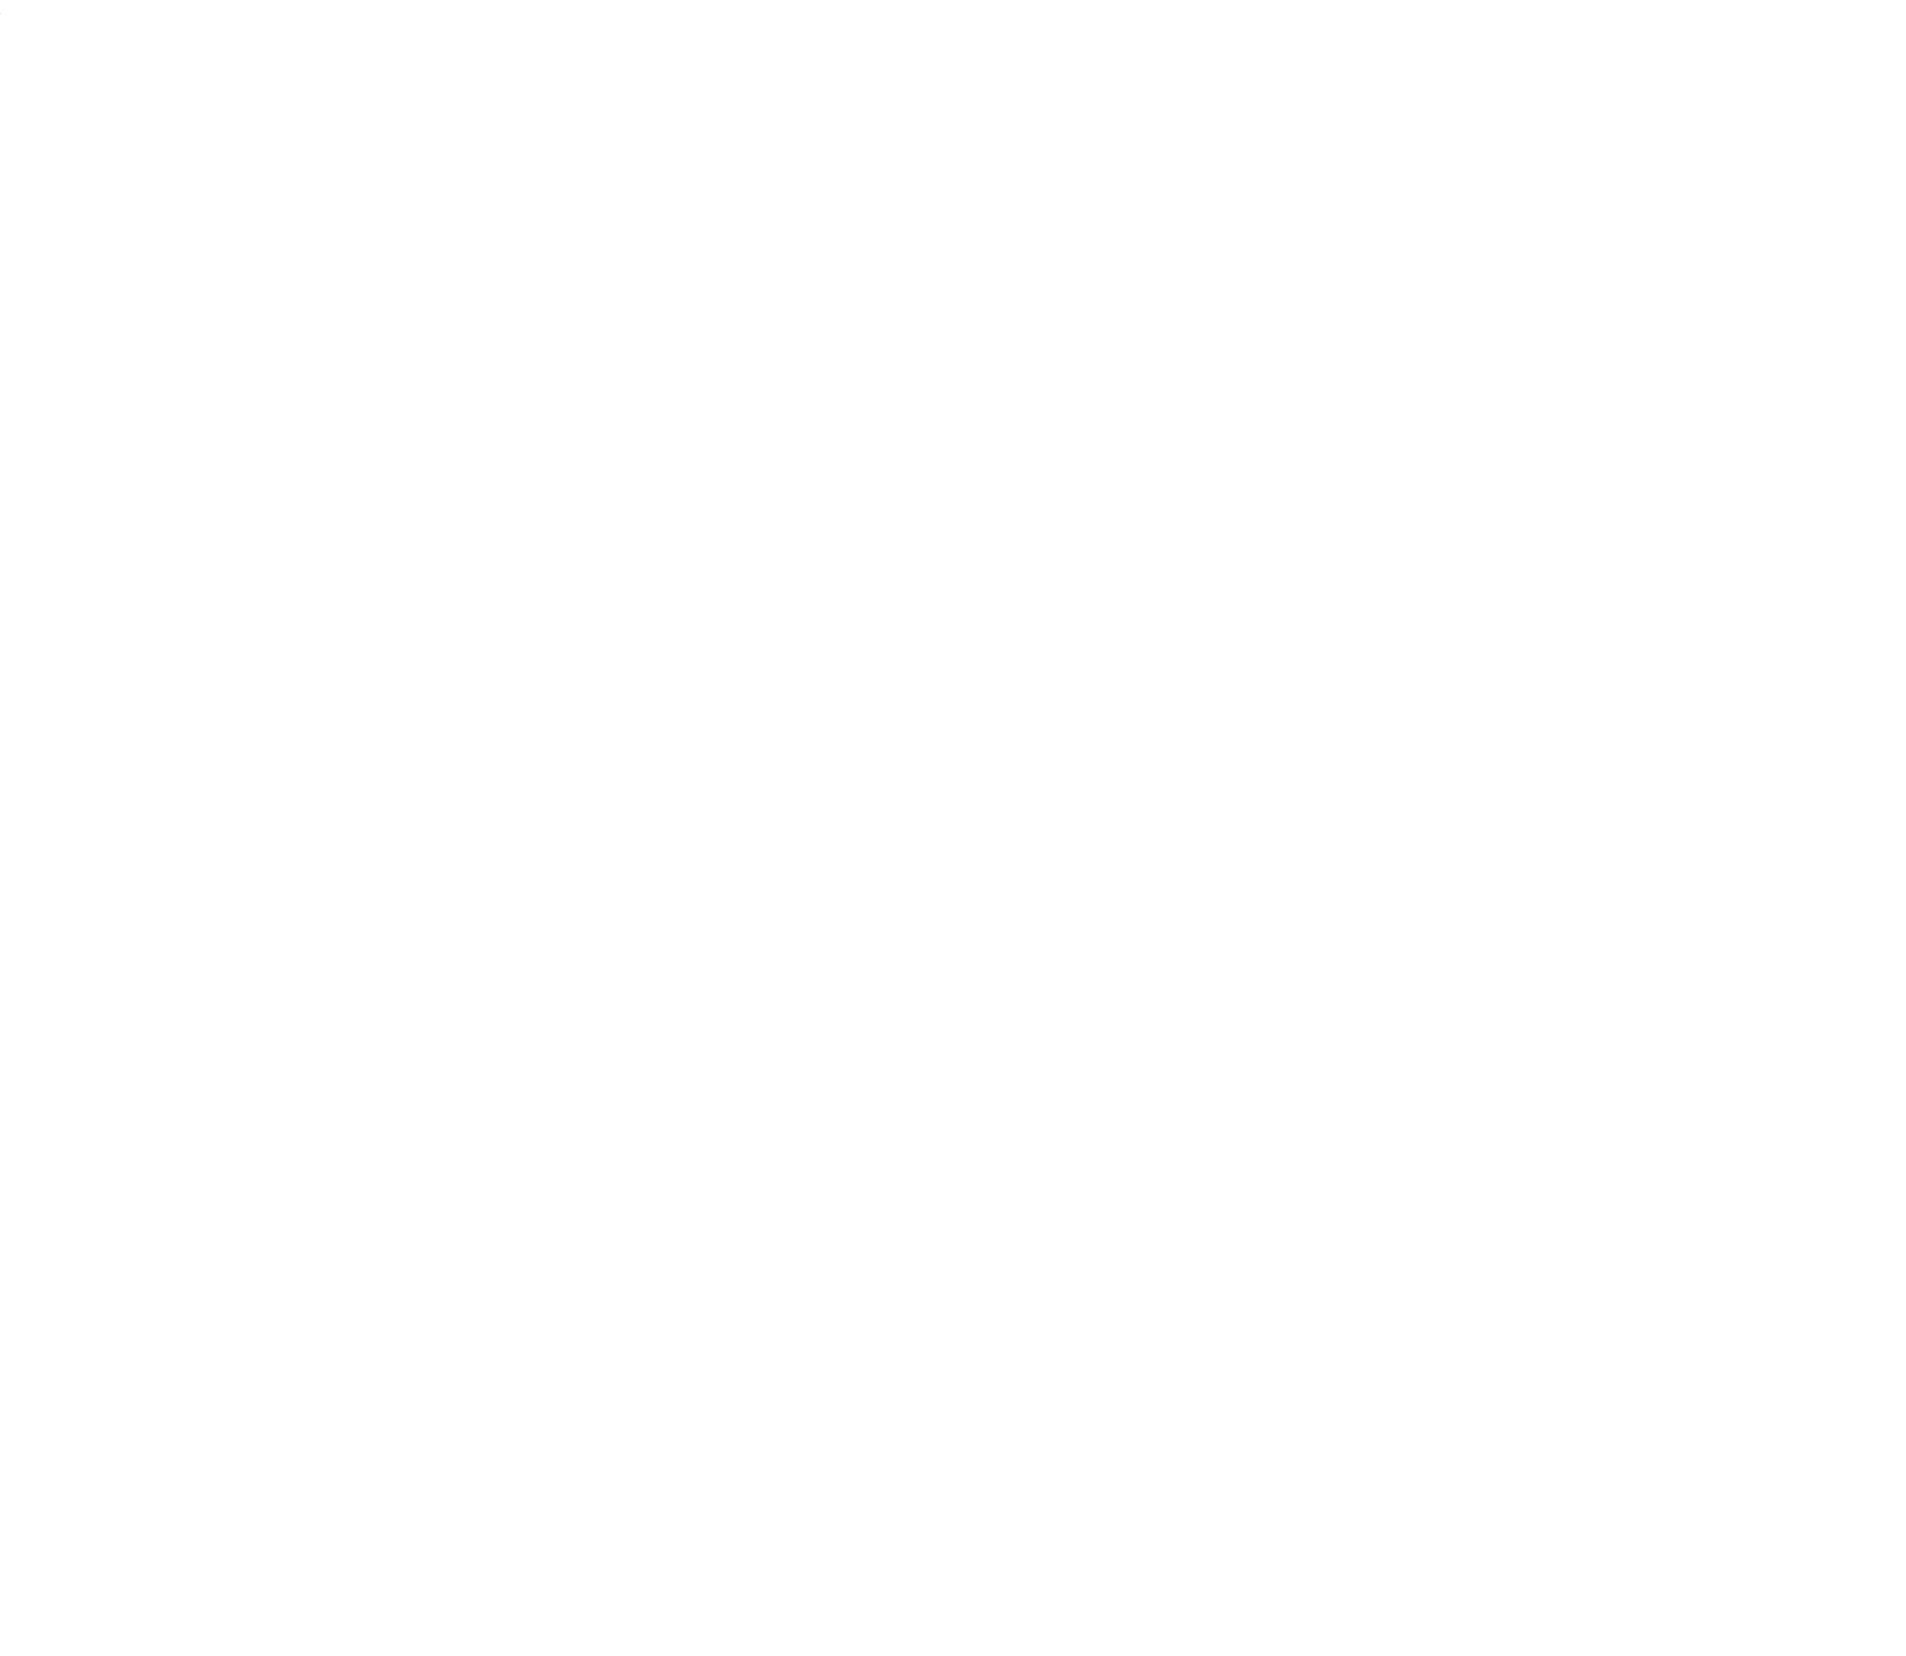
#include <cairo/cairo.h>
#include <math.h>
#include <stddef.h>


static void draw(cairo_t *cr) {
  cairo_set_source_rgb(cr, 1, 1, 1);
  cairo_paint(cr);
  cairo_set_source_rgb(cr, 222 / 255.0, 224 / 255.0, 250 / 255.0);
  cairo_rectangle(cr, 0, 13, 1, 1);
  cairo_fill(cr);
}

int main(void) {
  cairo_surface_t *surface = cairo_image_surface_create(CAIRO_FORMAT_RGB24, 1906, 1656);
  cairo_t *cr = cairo_create(surface);
  cairo_font_options_t *options = cairo_font_options_create();
  cairo_font_options_set_hint_metrics(options, CAIRO_HINT_METRICS_OFF);
  cairo_font_options_set_hint_style(options, CAIRO_HINT_STYLE_NONE);
  cairo_set_font_options(cr, options);
  cairo_set_miter_limit(cr, 4);
  draw(cr);
  cairo_surface_write_to_png(surface, "out.png");
  cairo_font_options_destroy(options);
  cairo_destroy(cr);
  cairo_surface_destroy(surface);
  return 0;
}
